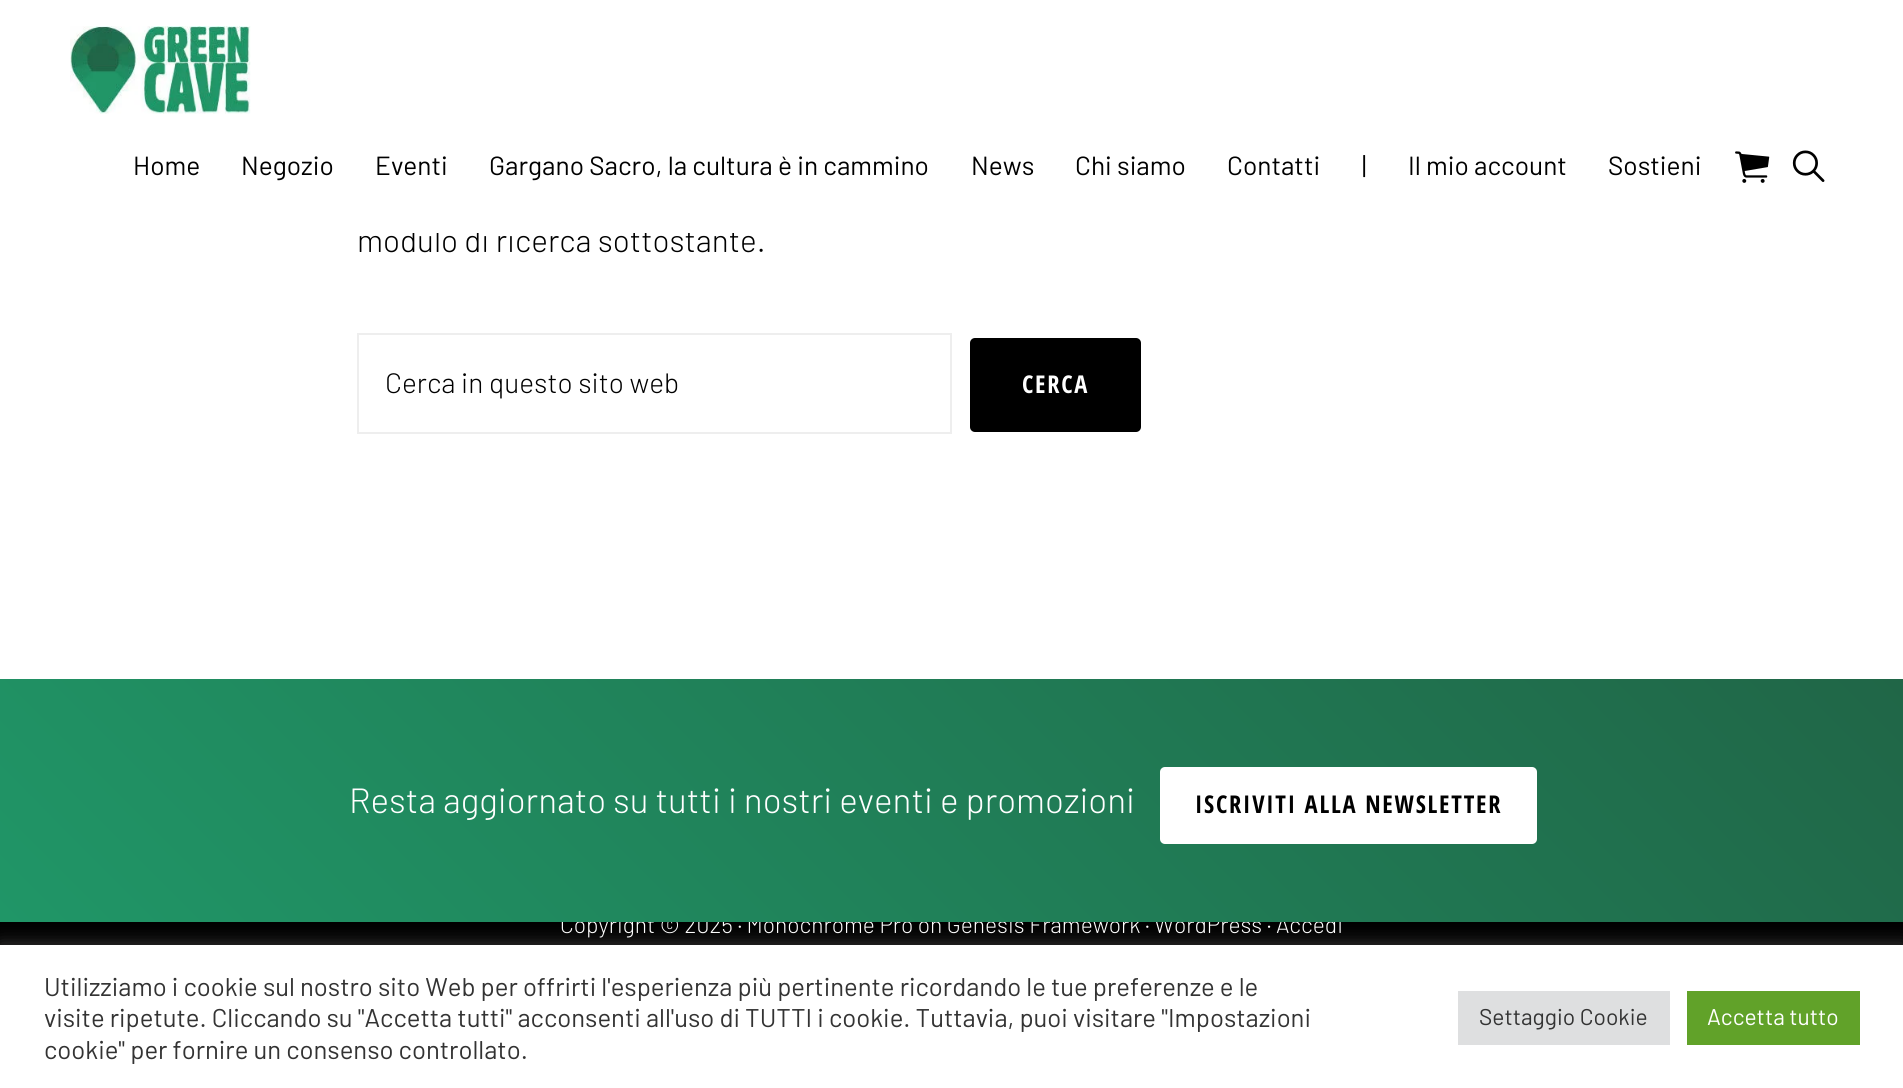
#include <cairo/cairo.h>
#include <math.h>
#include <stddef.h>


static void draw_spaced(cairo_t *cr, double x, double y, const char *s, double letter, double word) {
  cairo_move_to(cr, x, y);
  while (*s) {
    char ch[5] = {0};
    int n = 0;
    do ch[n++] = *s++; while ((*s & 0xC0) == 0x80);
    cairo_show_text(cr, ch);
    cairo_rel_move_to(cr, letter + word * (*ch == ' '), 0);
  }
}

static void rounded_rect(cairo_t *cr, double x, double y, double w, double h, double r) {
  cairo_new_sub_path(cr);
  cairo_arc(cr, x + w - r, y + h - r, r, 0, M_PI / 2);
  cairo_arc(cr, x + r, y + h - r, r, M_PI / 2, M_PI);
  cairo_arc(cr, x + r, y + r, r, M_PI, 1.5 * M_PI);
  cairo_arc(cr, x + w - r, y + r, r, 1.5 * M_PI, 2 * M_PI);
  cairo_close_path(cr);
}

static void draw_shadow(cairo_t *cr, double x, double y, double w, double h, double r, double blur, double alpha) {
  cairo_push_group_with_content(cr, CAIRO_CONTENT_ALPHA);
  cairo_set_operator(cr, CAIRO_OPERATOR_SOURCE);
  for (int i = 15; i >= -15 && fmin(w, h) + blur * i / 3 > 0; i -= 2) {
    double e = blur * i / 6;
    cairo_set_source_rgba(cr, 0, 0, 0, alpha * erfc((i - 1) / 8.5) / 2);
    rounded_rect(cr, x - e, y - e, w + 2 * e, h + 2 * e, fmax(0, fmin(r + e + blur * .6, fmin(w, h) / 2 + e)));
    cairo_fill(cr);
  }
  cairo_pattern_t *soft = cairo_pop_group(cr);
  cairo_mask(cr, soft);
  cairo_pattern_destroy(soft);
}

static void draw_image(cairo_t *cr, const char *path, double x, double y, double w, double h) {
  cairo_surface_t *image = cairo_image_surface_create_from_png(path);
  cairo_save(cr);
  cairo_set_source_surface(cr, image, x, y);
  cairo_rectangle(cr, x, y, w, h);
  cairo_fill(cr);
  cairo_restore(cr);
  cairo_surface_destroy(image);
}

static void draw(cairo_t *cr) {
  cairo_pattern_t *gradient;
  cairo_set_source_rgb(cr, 0, 0, 0);
  cairo_paint(cr);
  cairo_set_source_rgb(cr, 1, 1, 1);
  cairo_rectangle(cr, 0, 233, 1903, 446);
  cairo_fill(cr);
  cairo_rectangle(cr, 358, 334, 593, 99);
  cairo_set_source_rgb(cr, 238 / 255.0, 238 / 255.0, 238 / 255.0);
  cairo_stroke(cr);
  cairo_set_source_rgb(cr, 0, 0, 0);
  rounded_rect(cr, 970, 338, 171, 94, 5);
  cairo_fill(cr);
  cairo_select_font_face(cr, "Barlow Light", CAIRO_FONT_SLANT_NORMAL, CAIRO_FONT_WEIGHT_NORMAL);
  cairo_set_font_size(cr, 31.5);
  cairo_move_to(cr, 357, 252);
  cairo_show_text(cr, "modulo di ricerca sottostante.");
  cairo_set_source_rgb(cr, 1, 1, 1);
  cairo_rectangle(cr, 0, 0, 1903, 233);
  cairo_fill(cr);
  draw_image(cr, "images/3.png", 1792, 150, 33, 32);
  draw_image(cr, "images/2.png", 1735, 151, 35, 32);
  cairo_select_font_face(cr, "Barlow", CAIRO_FONT_SLANT_NORMAL, CAIRO_FONT_WEIGHT_NORMAL);
  cairo_set_font_size(cr, 26.25);
  cairo_set_source_rgb(cr, 0, 0, 0);
  cairo_move_to(cr, 1608, 175);
  cairo_show_text(cr, "Sostieni");
  cairo_move_to(cr, 1408, 175);
  cairo_show_text(cr, "Il mio account");
  cairo_move_to(cr, 1362, 175);
  cairo_show_text(cr, "|");
  cairo_move_to(cr, 1227, 175);
  cairo_show_text(cr, "Contatti");
  cairo_move_to(cr, 1075, 175);
  cairo_show_text(cr, "Chi siamo");
  cairo_move_to(cr, 971, 175);
  cairo_show_text(cr, "News");
  cairo_move_to(cr, 489, 175);
  cairo_show_text(cr, "Gargano Sacro, la cultura è in cammino");
  cairo_move_to(cr, 375, 175);
  cairo_show_text(cr, "Eventi");
  cairo_move_to(cr, 241, 175);
  cairo_show_text(cr, "Negozio");
  cairo_move_to(cr, 133, 175);
  cairo_show_text(cr, "Home");
  draw_image(cr, "images/1.png", 70, 26, 181, 88);
  cairo_select_font_face(cr, "Barlow Light", CAIRO_FONT_SLANT_NORMAL, CAIRO_FONT_WEIGHT_NORMAL);
  cairo_set_font_size(cr, 28);
  cairo_move_to(cr, 385, 393);
  cairo_show_text(cr, "Cerca in questo sito web");
  cairo_select_font_face(cr, "Open Sans Condensed", CAIRO_FONT_SLANT_NORMAL, CAIRO_FONT_WEIGHT_BOLD);
  cairo_set_font_size(cr, 24.5);
  cairo_set_source_rgb(cr, 1, 1, 1);
  draw_spaced(cr, 1022, 393, "CERCA", 1.75, 0);
  cairo_select_font_face(cr, "Barlow Light", CAIRO_FONT_SLANT_NORMAL, CAIRO_FONT_WEIGHT_NORMAL);
  cairo_set_font_size(cr, 22.75);
  cairo_move_to(cr, 560, 933);
  cairo_show_text(cr, "Copyright © 2025 · Monochrome Pro on Genesis Framework · WordPress · Accedi");
  gradient = cairo_pattern_create_linear(415, 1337, 1489, 264);
  cairo_pattern_add_color_stop_rgba(gradient, 0, 32 / 255.0, 150 / 255.0, 103 / 255.0, 1);
  cairo_pattern_add_color_stop_rgba(gradient, 1, 32 / 255.0, 102 / 255.0, 71 / 255.0, 1);
  cairo_set_source(cr, gradient);
  cairo_pattern_destroy(gradient);
  cairo_rectangle(cr, 0, 679, 1903, 243);
  cairo_fill(cr);
  cairo_set_source_rgb(cr, 1, 1, 1);
  rounded_rect(cr, 1160, 767, 377, 77, 5);
  cairo_fill(cr);
  cairo_select_font_face(cr, "Open Sans Condensed", CAIRO_FONT_SLANT_NORMAL, CAIRO_FONT_WEIGHT_BOLD);
  cairo_set_font_size(cr, 24.5);
  cairo_set_source_rgb(cr, 0, 0, 0);
  draw_spaced(cr, 1195, 813, "ISCRIVITI ALLA NEWSLETTER", 1.75, 0);
  cairo_select_font_face(cr, "Barlow Light", CAIRO_FONT_SLANT_NORMAL, CAIRO_FONT_WEIGHT_NORMAL);
  cairo_set_font_size(cr, 35);
  cairo_set_source_rgb(cr, 1, 1, 1);
  cairo_move_to(cr, 349, 813);
  cairo_show_text(cr, "Resta aggiornato su tutti i nostri eventi e promozioni");
  cairo_set_source_rgb(cr, 172 / 255.0, 171 / 255.0, 171 / 255.0);
  draw_shadow(cr, 0, 943, 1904, 144, 0, 9, 0.3);
  cairo_set_source_rgb(cr, 1, 1, 1);
  cairo_rectangle(cr, 0, 945, 1903, 143);
  cairo_fill(cr);
  cairo_select_font_face(cr, "Barlow", CAIRO_FONT_SLANT_NORMAL, CAIRO_FONT_WEIGHT_NORMAL);
  cairo_set_font_size(cr, 25.65);
  cairo_set_source_rgb(cr, 51 / 255.0, 51 / 255.0, 51 / 255.0);
  cairo_move_to(cr, 44, 996);
  cairo_show_text(cr, "Utilizziamo i cookie sul nostro sito Web per offrirti l'esperienza più pertinente ricordando le tue preferenze e le");
  cairo_move_to(cr, 44, 1027);
  cairo_show_text(cr, "visite ripetute. Cliccando su \"Accetta tutti\" acconsenti all'uso di TUTTI i cookie. Tuttavia, puoi visitare \"Impostazioni");
  cairo_move_to(cr, 44, 1059);
  cairo_show_text(cr, "cookie\" per fornire un consenso controllato.");
  cairo_set_source_rgb(cr, 222 / 255.0, 223 / 255.0, 224 / 255.0);
  cairo_rectangle(cr, 1458, 991, 212, 54);
  cairo_fill(cr);
  cairo_set_font_size(cr, 22.75);
  cairo_set_source_rgb(cr, 51 / 255.0, 51 / 255.0, 51 / 255.0);
  cairo_move_to(cr, 1479, 1025);
  cairo_show_text(cr, "Settaggio Cookie");
  cairo_set_source_rgb(cr, 97 / 255.0, 162 / 255.0, 41 / 255.0);
  cairo_rectangle(cr, 1687, 991, 173, 54);
  cairo_fill(cr);
  cairo_set_source_rgb(cr, 1, 1, 1);
  cairo_move_to(cr, 1707, 1025);
  cairo_show_text(cr, "Accetta tutto");
}

int main(void) {
  cairo_surface_t *surface = cairo_image_surface_create(CAIRO_FORMAT_RGB24, 1903, 1088);
  cairo_t *cr = cairo_create(surface);
  cairo_font_options_t *options = cairo_font_options_create();
  cairo_font_options_set_hint_metrics(options, CAIRO_HINT_METRICS_OFF);
  cairo_font_options_set_hint_style(options, CAIRO_HINT_STYLE_NONE);
  cairo_set_font_options(cr, options);
  cairo_set_miter_limit(cr, 4);
  draw(cr);
  cairo_surface_write_to_png(surface, "out.png");
  cairo_font_options_destroy(options);
  cairo_destroy(cr);
  cairo_surface_destroy(surface);
  return 0;
}
